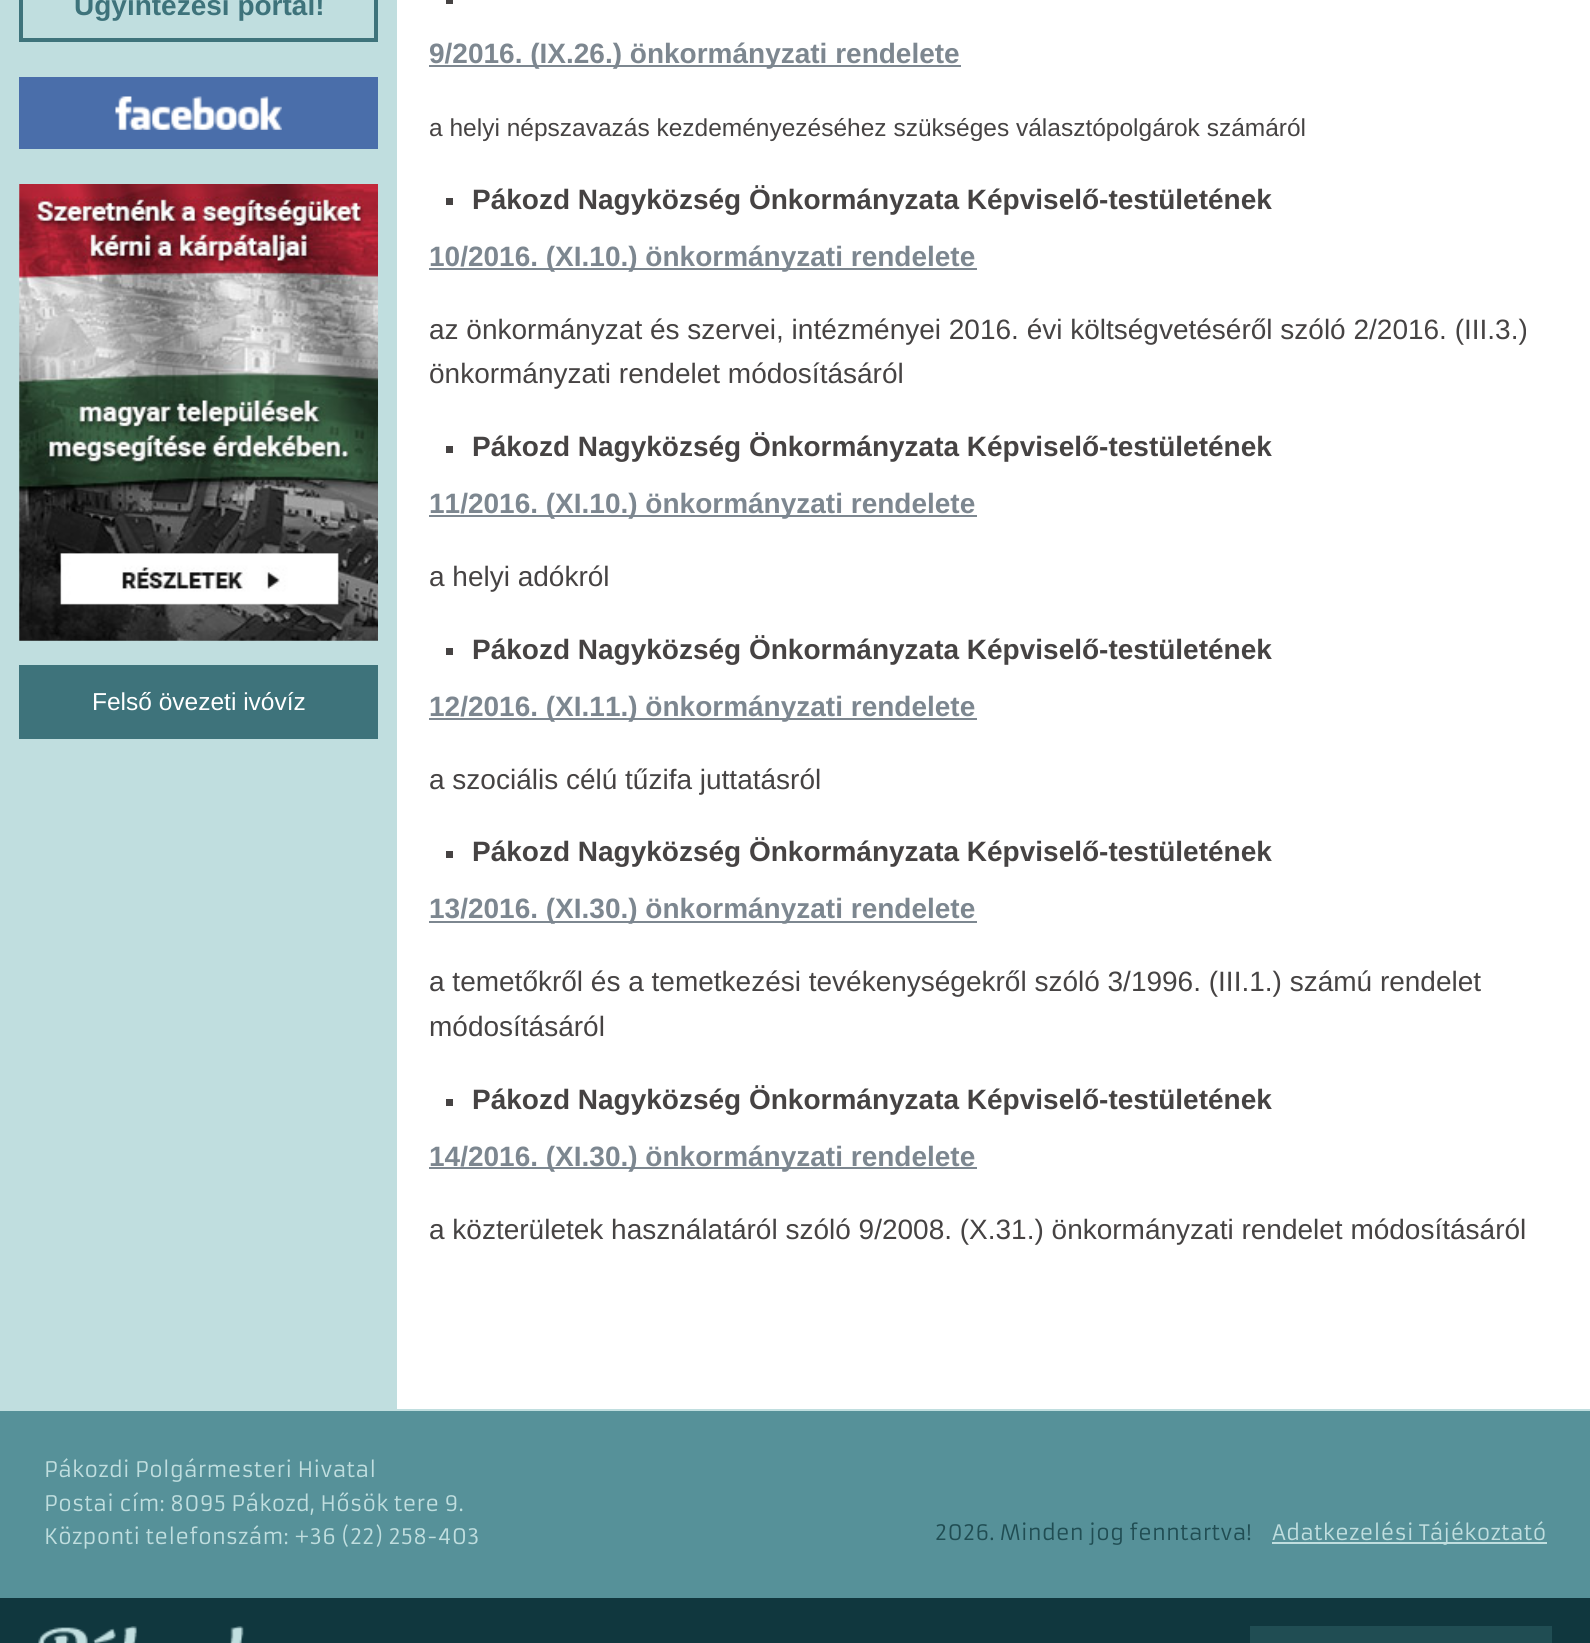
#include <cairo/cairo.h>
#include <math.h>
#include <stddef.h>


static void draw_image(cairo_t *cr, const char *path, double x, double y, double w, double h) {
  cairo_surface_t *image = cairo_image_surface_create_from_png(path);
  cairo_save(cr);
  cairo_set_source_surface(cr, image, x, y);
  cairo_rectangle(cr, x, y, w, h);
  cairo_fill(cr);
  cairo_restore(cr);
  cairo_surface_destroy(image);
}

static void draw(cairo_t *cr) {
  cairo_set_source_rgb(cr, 1, 1, 1);
  cairo_paint(cr);
  cairo_set_source_rgb(cr, 192 / 255.0, 222 / 255.0, 223 / 255.0);
  cairo_rectangle(cr, 0, 0, 397, 1409);
  cairo_fill(cr);
  cairo_rectangle(cr, 21, -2, 355, 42);
  cairo_set_source_rgb(cr, 62 / 255.0, 115 / 255.0, 123 / 255.0);
  cairo_set_line_width(cr, 4);
  cairo_stroke(cr);
  cairo_set_source_rgb(cr, 74 / 255.0, 110 / 255.0, 170 / 255.0);
  cairo_rectangle(cr, 19, 77, 359, 72);
  cairo_fill(cr);
  draw_image(cr, "images/1.png", 115, 96, 167, 34);
  draw_image(cr, "images/2.png", 19, 184, 359, 457);
  cairo_set_source_rgb(cr, 62 / 255.0, 115 / 255.0, 123 / 255.0);
  cairo_rectangle(cr, 19, 665, 359, 74);
  cairo_fill(cr);
  cairo_set_source_rgb(cr, 70 / 255.0, 67 / 255.0, 67 / 255.0);
  cairo_rectangle(cr, 446, 0, 7, 4);
  cairo_fill(cr);
  cairo_set_source_rgb(cr, 125 / 255.0, 135 / 255.0, 144 / 255.0);
  cairo_rectangle(cr, 429, 65, 532, 2);
  cairo_fill(cr);
  cairo_set_source_rgb(cr, 70 / 255.0, 67 / 255.0, 67 / 255.0);
  cairo_rectangle(cr, 446, 198, 7, 7);
  cairo_fill(cr);
  cairo_set_source_rgb(cr, 125 / 255.0, 135 / 255.0, 144 / 255.0);
  cairo_rectangle(cr, 429, 268, 548, 2);
  cairo_fill(cr);
  cairo_set_source_rgb(cr, 70 / 255.0, 67 / 255.0, 67 / 255.0);
  cairo_rectangle(cr, 446, 446, 7, 7);
  cairo_fill(cr);
  cairo_set_source_rgb(cr, 125 / 255.0, 135 / 255.0, 144 / 255.0);
  cairo_rectangle(cr, 429, 515, 548, 2);
  cairo_fill(cr);
  cairo_set_source_rgb(cr, 70 / 255.0, 67 / 255.0, 67 / 255.0);
  cairo_rectangle(cr, 446, 648, 7, 7);
  cairo_fill(cr);
  cairo_set_source_rgb(cr, 125 / 255.0, 135 / 255.0, 144 / 255.0);
  cairo_rectangle(cr, 429, 718, 548, 2);
  cairo_fill(cr);
  cairo_set_source_rgb(cr, 70 / 255.0, 67 / 255.0, 67 / 255.0);
  cairo_rectangle(cr, 446, 851, 7, 7);
  cairo_fill(cr);
  cairo_set_source_rgb(cr, 125 / 255.0, 135 / 255.0, 144 / 255.0);
  cairo_rectangle(cr, 429, 921, 548, 2);
  cairo_fill(cr);
  cairo_set_source_rgb(cr, 70 / 255.0, 67 / 255.0, 67 / 255.0);
  cairo_rectangle(cr, 446, 1099, 7, 7);
  cairo_fill(cr);
  cairo_set_source_rgb(cr, 125 / 255.0, 135 / 255.0, 144 / 255.0);
  cairo_rectangle(cr, 429, 1167, 548, 2);
  cairo_fill(cr);
  cairo_set_source_rgb(cr, 16 / 255.0, 55 / 255.0, 62 / 255.0);
  cairo_rectangle(cr, 0, 1598, 1590, 45);
  cairo_fill(cr);
  cairo_set_source_rgb(cr, 192 / 255.0, 222 / 255.0, 223 / 255.0);
  cairo_rectangle(cr, 0, 1409, 1590, 2);
  cairo_fill(cr);
  cairo_set_source_rgb(cr, 86 / 255.0, 145 / 255.0, 153 / 255.0);
  cairo_rectangle(cr, 0, 1411, 1590, 187);
  cairo_fill(cr);
  cairo_set_source_rgb(cr, 192 / 255.0, 222 / 255.0, 223 / 255.0);
  cairo_rectangle(cr, 1272, 1542, 275, 2);
  cairo_fill(cr);
  draw_image(cr, "images/3.png", 38, 1626, 206, 17);
  cairo_set_source_rgb(cr, 32 / 255.0, 77 / 255.0, 83 / 255.0);
  cairo_rectangle(cr, 1250, 1626, 302, 17);
  cairo_fill(cr);
  cairo_select_font_face(cr, "Liberation Sans", CAIRO_FONT_SLANT_NORMAL, CAIRO_FONT_WEIGHT_BOLD);
  cairo_set_font_size(cr, 28);
  cairo_set_source_rgb(cr, 62 / 255.0, 115 / 255.0, 123 / 255.0);
  cairo_move_to(cr, 74, 15);
  cairo_show_text(cr, "Ügyintézési portál!");
  cairo_select_font_face(cr, "Liberation Sans", CAIRO_FONT_SLANT_NORMAL, CAIRO_FONT_WEIGHT_NORMAL);
  cairo_set_font_size(cr, 24.5);
  cairo_set_source_rgb(cr, 1, 1, 1);
  cairo_move_to(cr, 92, 710);
  cairo_show_text(cr, "Felső övezeti ivóvíz");
  cairo_select_font_face(cr, "Liberation Sans", CAIRO_FONT_SLANT_NORMAL, CAIRO_FONT_WEIGHT_BOLD);
  cairo_set_font_size(cr, 28);
  cairo_set_source_rgb(cr, 125 / 255.0, 135 / 255.0, 144 / 255.0);
  cairo_move_to(cr, 429, 63);
  cairo_show_text(cr, "9/2016. (IX.26.) önkormányzati rendelete");
  cairo_select_font_face(cr, "Liberation Sans", CAIRO_FONT_SLANT_NORMAL, CAIRO_FONT_WEIGHT_NORMAL);
  cairo_set_font_size(cr, 24.5);
  cairo_set_source_rgb(cr, 70 / 255.0, 67 / 255.0, 67 / 255.0);
  cairo_move_to(cr, 429, 136);
  cairo_show_text(cr, "a helyi népszavazás kezdeményezéséhez szükséges választópolgárok számáról");
  cairo_select_font_face(cr, "Liberation Sans", CAIRO_FONT_SLANT_NORMAL, CAIRO_FONT_WEIGHT_BOLD);
  cairo_set_font_size(cr, 28);
  cairo_move_to(cr, 472, 209);
  cairo_show_text(cr, "Pákozd Nagyközség Önkormányzata Képviselő-testületének");
  cairo_set_source_rgb(cr, 125 / 255.0, 135 / 255.0, 144 / 255.0);
  cairo_move_to(cr, 429, 266);
  cairo_show_text(cr, "10/2016. (XI.10.) önkormányzati rendelete");
  cairo_select_font_face(cr, "Liberation Sans", CAIRO_FONT_SLANT_NORMAL, CAIRO_FONT_WEIGHT_NORMAL);
  cairo_set_source_rgb(cr, 70 / 255.0, 67 / 255.0, 67 / 255.0);
  cairo_move_to(cr, 429, 339);
  cairo_show_text(cr, "az önkormányzat és szervei, intézményei 2016. évi költségvetéséről szóló 2/2016. (III.3.)");
  cairo_move_to(cr, 429, 383);
  cairo_show_text(cr, "önkormányzati rendelet módosításáról");
  cairo_select_font_face(cr, "Liberation Sans", CAIRO_FONT_SLANT_NORMAL, CAIRO_FONT_WEIGHT_BOLD);
  cairo_move_to(cr, 472, 456);
  cairo_show_text(cr, "Pákozd Nagyközség Önkormányzata Képviselő-testületének");
  cairo_set_source_rgb(cr, 125 / 255.0, 135 / 255.0, 144 / 255.0);
  cairo_move_to(cr, 429, 513);
  cairo_show_text(cr, "11/2016. (XI.10.) önkormányzati rendelete");
  cairo_select_font_face(cr, "Liberation Sans", CAIRO_FONT_SLANT_NORMAL, CAIRO_FONT_WEIGHT_NORMAL);
  cairo_set_source_rgb(cr, 70 / 255.0, 67 / 255.0, 67 / 255.0);
  cairo_move_to(cr, 429, 586);
  cairo_show_text(cr, "a helyi adókról");
  cairo_select_font_face(cr, "Liberation Sans", CAIRO_FONT_SLANT_NORMAL, CAIRO_FONT_WEIGHT_BOLD);
  cairo_move_to(cr, 472, 659);
  cairo_show_text(cr, "Pákozd Nagyközség Önkormányzata Képviselő-testületének");
  cairo_set_source_rgb(cr, 125 / 255.0, 135 / 255.0, 144 / 255.0);
  cairo_move_to(cr, 429, 716);
  cairo_show_text(cr, "12/2016. (XI.11.) önkormányzati rendelete");
  cairo_select_font_face(cr, "Liberation Sans", CAIRO_FONT_SLANT_NORMAL, CAIRO_FONT_WEIGHT_NORMAL);
  cairo_set_source_rgb(cr, 70 / 255.0, 67 / 255.0, 67 / 255.0);
  cairo_move_to(cr, 429, 789);
  cairo_show_text(cr, "a szociális célú tűzifa juttatásról");
  cairo_select_font_face(cr, "Liberation Sans", CAIRO_FONT_SLANT_NORMAL, CAIRO_FONT_WEIGHT_BOLD);
  cairo_move_to(cr, 472, 861);
  cairo_show_text(cr, "Pákozd Nagyközség Önkormányzata Képviselő-testületének");
  cairo_set_source_rgb(cr, 125 / 255.0, 135 / 255.0, 144 / 255.0);
  cairo_move_to(cr, 429, 918);
  cairo_show_text(cr, "13/2016. (XI.30.) önkormányzati rendelete");
  cairo_select_font_face(cr, "Liberation Sans", CAIRO_FONT_SLANT_NORMAL, CAIRO_FONT_WEIGHT_NORMAL);
  cairo_set_source_rgb(cr, 70 / 255.0, 67 / 255.0, 67 / 255.0);
  cairo_move_to(cr, 429, 991);
  cairo_show_text(cr, "a temetőkről és a temetkezési tevékenységekről szóló 3/1996. (III.1.) számú rendelet");
  cairo_move_to(cr, 429, 1036);
  cairo_show_text(cr, "módosításáról");
  cairo_select_font_face(cr, "Liberation Sans", CAIRO_FONT_SLANT_NORMAL, CAIRO_FONT_WEIGHT_BOLD);
  cairo_move_to(cr, 472, 1109);
  cairo_show_text(cr, "Pákozd Nagyközség Önkormányzata Képviselő-testületének");
  cairo_set_source_rgb(cr, 125 / 255.0, 135 / 255.0, 144 / 255.0);
  cairo_move_to(cr, 429, 1166);
  cairo_show_text(cr, "14/2016. (XI.30.) önkormányzati rendelete");
  cairo_select_font_face(cr, "Liberation Sans", CAIRO_FONT_SLANT_NORMAL, CAIRO_FONT_WEIGHT_NORMAL);
  cairo_set_source_rgb(cr, 70 / 255.0, 67 / 255.0, 67 / 255.0);
  cairo_move_to(cr, 429, 1239);
  cairo_show_text(cr, "a közterületek használatáról szóló 9/2008. (X.31.) önkormányzati rendelet módosításáról");
  cairo_select_font_face(cr, "Armata", CAIRO_FONT_SLANT_NORMAL, CAIRO_FONT_WEIGHT_NORMAL);
  cairo_set_font_size(cr, 21);
  cairo_set_source_rgb(cr, 192 / 255.0, 222 / 255.0, 223 / 255.0);
  cairo_move_to(cr, 44, 1477);
  cairo_show_text(cr, "Pákozdi Polgármesteri Hivatal");
  cairo_move_to(cr, 44, 1511);
  cairo_show_text(cr, "Postai cím: 8095 Pákozd, Hősök tere 9.");
  cairo_move_to(cr, 44, 1544);
  cairo_show_text(cr, "Központi telefonszám: +36 (22) 258-403");
  cairo_set_source_rgb(cr, 32 / 255.0, 77 / 255.0, 83 / 255.0);
  cairo_move_to(cr, 935, 1540);
  cairo_show_text(cr, "2026. Minden jog fenntartva!");
  cairo_set_source_rgb(cr, 192 / 255.0, 222 / 255.0, 223 / 255.0);
  cairo_move_to(cr, 1272, 1540);
  cairo_show_text(cr, "Adatkezelési Tájékoztató");
}

int main(void) {
  cairo_surface_t *surface = cairo_image_surface_create(CAIRO_FORMAT_RGB24, 1590, 1643);
  cairo_t *cr = cairo_create(surface);
  cairo_font_options_t *options = cairo_font_options_create();
  cairo_font_options_set_hint_metrics(options, CAIRO_HINT_METRICS_OFF);
  cairo_font_options_set_hint_style(options, CAIRO_HINT_STYLE_NONE);
  cairo_set_font_options(cr, options);
  cairo_set_miter_limit(cr, 4);
  draw(cr);
  cairo_surface_write_to_png(surface, "out.png");
  cairo_font_options_destroy(options);
  cairo_destroy(cr);
  cairo_surface_destroy(surface);
  return 0;
}
